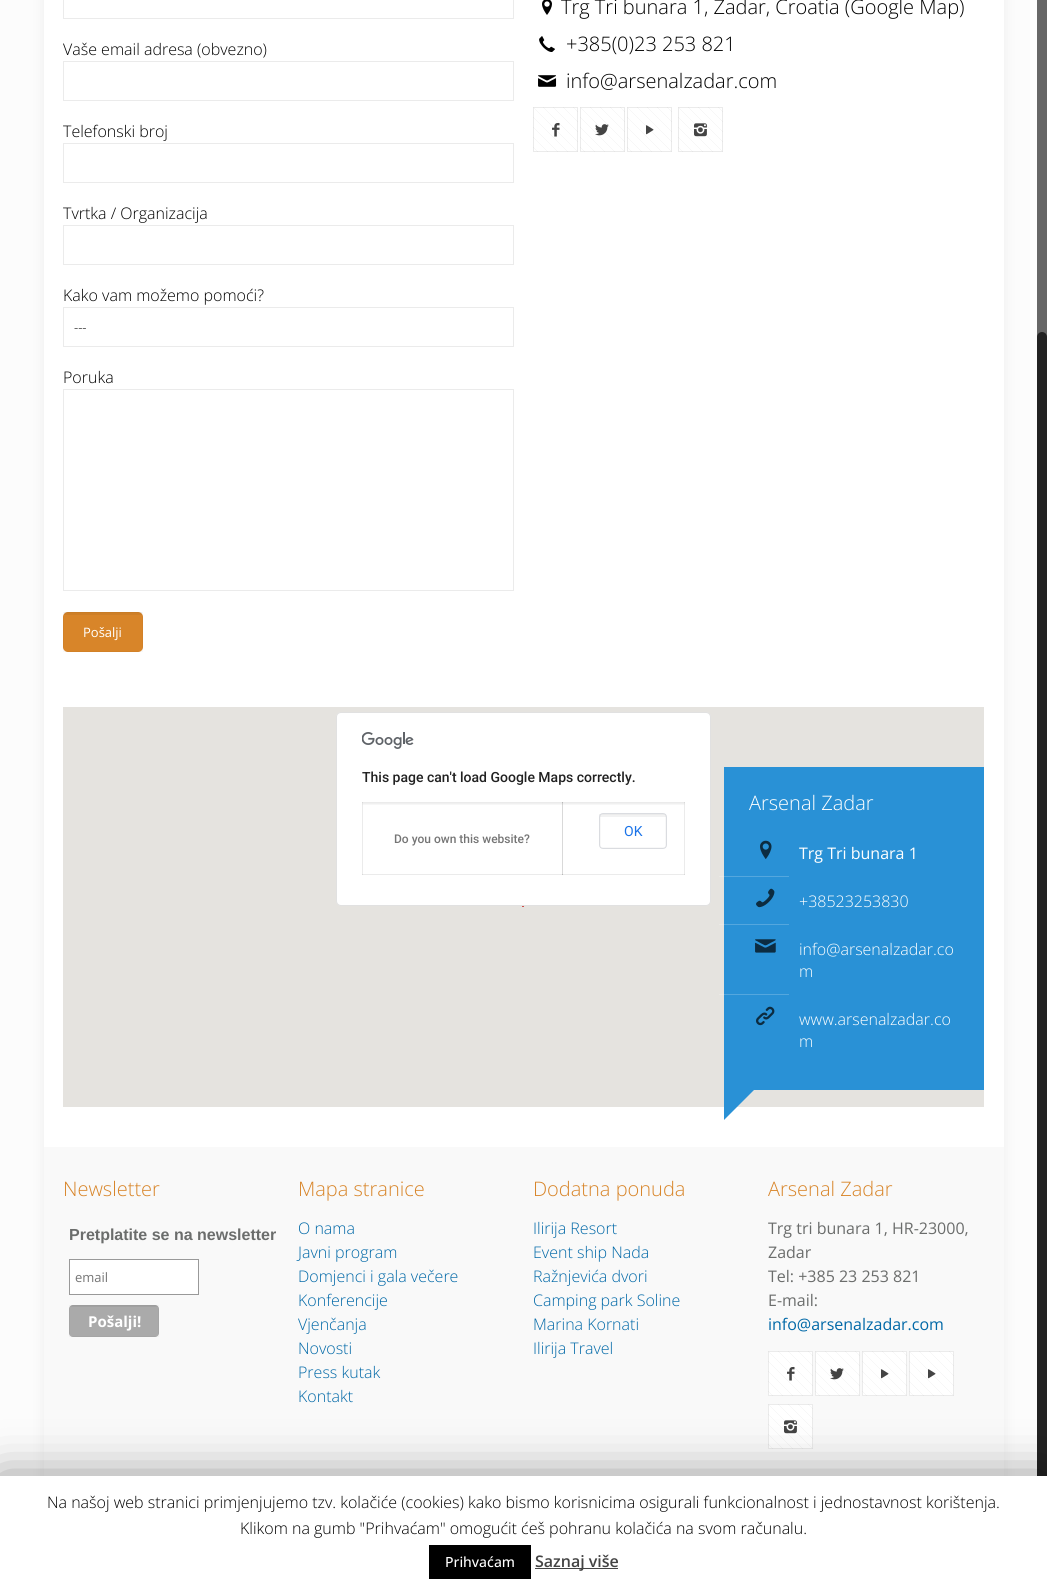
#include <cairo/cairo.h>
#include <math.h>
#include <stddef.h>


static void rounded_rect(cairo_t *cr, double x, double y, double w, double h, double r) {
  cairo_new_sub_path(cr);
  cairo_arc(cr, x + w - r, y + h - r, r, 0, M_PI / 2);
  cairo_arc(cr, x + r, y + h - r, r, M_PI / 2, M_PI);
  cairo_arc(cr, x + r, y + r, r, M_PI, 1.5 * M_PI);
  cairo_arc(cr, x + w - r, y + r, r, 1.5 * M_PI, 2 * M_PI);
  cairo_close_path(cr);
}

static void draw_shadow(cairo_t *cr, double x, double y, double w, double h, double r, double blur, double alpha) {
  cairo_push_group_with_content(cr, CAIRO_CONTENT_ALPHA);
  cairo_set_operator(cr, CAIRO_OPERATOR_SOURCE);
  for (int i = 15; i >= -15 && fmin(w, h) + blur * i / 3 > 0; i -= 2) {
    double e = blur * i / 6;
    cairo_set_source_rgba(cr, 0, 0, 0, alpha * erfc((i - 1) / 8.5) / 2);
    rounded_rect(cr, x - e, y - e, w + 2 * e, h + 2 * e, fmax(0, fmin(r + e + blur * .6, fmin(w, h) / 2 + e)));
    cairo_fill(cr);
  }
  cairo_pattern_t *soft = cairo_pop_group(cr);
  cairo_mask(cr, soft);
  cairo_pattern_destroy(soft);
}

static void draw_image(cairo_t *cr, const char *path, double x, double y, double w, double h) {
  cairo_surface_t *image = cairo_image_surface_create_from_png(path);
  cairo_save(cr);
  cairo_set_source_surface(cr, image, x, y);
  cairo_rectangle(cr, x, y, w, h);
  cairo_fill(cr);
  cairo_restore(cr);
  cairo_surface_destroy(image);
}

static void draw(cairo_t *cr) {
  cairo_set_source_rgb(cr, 252 / 255.0, 252 / 255.0, 252 / 255.0);
  cairo_paint(cr);
  cairo_set_source_rgb(cr, 0, 0, 0);
  draw_shadow(cr, 44, -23, 960, 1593, 0, 7.5, 0.06);
  cairo_set_source_rgb(cr, 1, 1, 1);
  cairo_rectangle(cr, 44, 0, 960, 1147);
  cairo_fill(cr);
  cairo_rectangle(cr, 63.5, -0.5, 450, 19);
  cairo_set_source_rgb(cr, 235 / 255.0, 235 / 255.0, 235 / 255.0);
  cairo_set_line_width(cr, 1);
  cairo_stroke(cr);
  cairo_rectangle(cr, 63.5, 61.5, 450, 39);
  cairo_stroke(cr);
  cairo_rectangle(cr, 63.5, 143.5, 450, 39);
  cairo_stroke(cr);
  cairo_rectangle(cr, 63.5, 225.5, 450, 39);
  cairo_stroke(cr);
  cairo_rectangle(cr, 63.5, 307.5, 450, 39);
  cairo_stroke(cr);
  cairo_rectangle(cr, 63.5, 389.5, 450, 201);
  cairo_stroke(cr);
  cairo_set_source_rgb(cr, 216 / 255.0, 133 / 255.0, 41 / 255.0);
  rounded_rect(cr, 63, 612, 80, 40, 5);
  cairo_fill(cr);
  cairo_set_source_rgba(cr, 0, 0, 0, 0.05);
  cairo_rectangle(cr, 64, 612, 78, 3);
  cairo_fill(cr);
  cairo_rectangle(cr, 63.5, 612.5, 79, 39);
  cairo_set_source_rgba(cr, 0, 0, 0, 0.03);
  cairo_stroke(cr);
  draw_image(cr, "images/1.png", 542, 0, 10, 15);
  draw_image(cr, "images/2.png", 539, 36, 16, 16);
  draw_image(cr, "images/3.png", 538, 75, 19, 12);
  draw_image(cr, "images/4.png", 533, 107, 45, 45);
  cairo_rectangle(cr, 533.5, 107.5, 44, 44);
  cairo_set_source_rgba(cr, 0, 0, 0, 0.08);
  cairo_stroke(cr);
  draw_image(cr, "images/5.png", 552, 123, 8, 14);
  draw_image(cr, "images/4.png", 580, 107, 45, 45);
  cairo_rectangle(cr, 580.5, 107.5, 44, 44);
  cairo_stroke(cr);
  draw_image(cr, "images/6.png", 595, 124, 14, 12);
  draw_image(cr, "images/4.png", 627, 107, 45, 45);
  cairo_rectangle(cr, 627.5, 107.5, 44, 44);
  cairo_stroke(cr);
  draw_image(cr, "images/7.png", 646, 125, 8, 10);
  draw_image(cr, "images/4.png", 678, 107, 45, 45);
  cairo_rectangle(cr, 678.5, 107.5, 44, 44);
  cairo_stroke(cr);
  draw_image(cr, "images/8.png", 694, 123, 13, 14);
  cairo_set_source_rgb(cr, 229 / 255.0, 227 / 255.0, 223 / 255.0);
  cairo_rectangle(cr, 63, 707, 921, 400);
  cairo_fill(cr);
  cairo_set_source_rgb(cr, 234 / 255.0, 233 / 255.0, 229 / 255.0);
  cairo_rectangle(cr, 719, 994, 5, 1);
  cairo_fill(cr);
  cairo_rectangle(cr, 719, 924, 5, 1);
  cairo_fill(cr);
  cairo_rectangle(cr, 719, 876, 5, 1);
  cairo_fill(cr);
  draw_image(cr, "images/9.png", 522, 906, 2, 1);
  cairo_set_source_rgb(cr, 1, 1, 1);
  rounded_rect(cr, 336, 712, 375, 194, 5);
  cairo_fill(cr);
  rounded_rect(cr, 336.5, 712.5, 374, 193, 4.5);
  cairo_set_source_rgba(cr, 0, 0, 0, 0.12);
  cairo_stroke(cr);
  draw_image(cr, "images/10.png", 362, 732, 52, 17);
  draw_image(cr, "images/12.png", 362, 803, 200, 2);
  draw_image(cr, "images/11.png", 561, 803, 124, 2);
  cairo_set_source_rgb(cr, 235 / 255.0, 235 / 255.0, 235 / 255.0);
  cairo_rectangle(cr, 562, 802, 123, 1);
  cairo_fill(cr);
  cairo_set_source_rgba(cr, 0, 0, 0, 0.08);
  cairo_rectangle(cr, 684, 802, 1, 73);
  cairo_fill(cr);
  cairo_rectangle(cr, 562, 874, 123, 1);
  cairo_fill(cr);
  cairo_rectangle(cr, 562, 802, 1, 73);
  cairo_fill(cr);
  cairo_set_source_rgb(cr, 242 / 255.0, 242 / 255.0, 242 / 255.0);
  cairo_rectangle(cr, 599, 814, 67, 3);
  cairo_fill(cr);
  cairo_rectangle(cr, 600.5, 814.5, 65, 33);
  cairo_set_source_rgba(cr, 0, 0, 0, 0.03);
  cairo_stroke(cr);
  rounded_rect(cr, 599.5, 813.5, 67, 35, 3.5);
  cairo_set_source_rgb(cr, 218 / 255.0, 220 / 255.0, 224 / 255.0);
  cairo_stroke(cr);
  cairo_set_source_rgba(cr, 0, 0, 0, 0.08);
  cairo_rectangle(cr, 362, 802, 201, 1);
  cairo_fill(cr);
  cairo_rectangle(cr, 562, 802, 1, 73);
  cairo_fill(cr);
  cairo_rectangle(cr, 362, 874, 201, 1);
  cairo_fill(cr);
  cairo_rectangle(cr, 362, 802, 1, 73);
  cairo_fill(cr);
  cairo_set_source_rgb(cr, 41 / 255.0, 145 / 255.0, 214 / 255.0);
  cairo_rectangle(cr, 724, 767, 260, 323);
  cairo_fill(cr);
  cairo_set_source_rgb(cr, 84 / 255.0, 167 / 255.0, 222 / 255.0);
  cairo_rectangle(cr, 724, 994, 65, 1);
  cairo_fill(cr);
  cairo_rectangle(cr, 724, 924, 65, 1);
  cairo_fill(cr);
  cairo_rectangle(cr, 724, 876, 65, 1);
  cairo_fill(cr);
  draw_image(cr, "images/13.png", 760, 840, 12, 19);
  draw_image(cr, "images/14.png", 756, 888, 19, 20);
  draw_image(cr, "images/15.png", 755, 939, 21, 14);
  draw_image(cr, "images/16.png", 756, 1006, 19, 20);
  cairo_set_source_rgb(cr, 41 / 255.0, 145 / 255.0, 214 / 255.0);
  cairo_new_path(cr);
  cairo_move_to(cr, 724, 1090);
  cairo_line_to(cr, 754, 1090);
  cairo_line_to(cr, 724, 1120);
  cairo_close_path(cr);
  cairo_fill(cr);
  cairo_set_source_rgb(cr, 249 / 255.0, 249 / 255.0, 249 / 255.0);
  cairo_rectangle(cr, 44, 1147, 960, 329);
  cairo_fill(cr);
  cairo_set_source_rgb(cr, 1, 1, 1);
  cairo_rectangle(cr, 69.5, 1259.5, 129, 35);
  cairo_fill_preserve(cr);
  cairo_set_source_rgb(cr, 153 / 255.0, 153 / 255.0, 153 / 255.0);
  cairo_stroke(cr);
  cairo_set_source_rgb(cr, 170 / 255.0, 170 / 255.0, 170 / 255.0);
  rounded_rect(cr, 69, 1305, 90, 32, 4);
  cairo_fill(cr);
  draw_image(cr, "images/17.png", 70, 1305, 88, 2);
  cairo_rectangle(cr, 69.5, 1305.5, 89, 31);
  cairo_set_source_rgba(cr, 0, 0, 0, 0.03);
  cairo_stroke(cr);
  cairo_set_source_rgb(cr, 1, 1, 1);
  cairo_rectangle(cr, 768, 1351, 45, 45);
  cairo_fill(cr);
  draw_image(cr, "images/4.png", 768, 1351, 45, 45);
  cairo_rectangle(cr, 768.5, 1351.5, 44, 44);
  cairo_set_source_rgba(cr, 0, 0, 0, 0.08);
  cairo_stroke(cr);
  draw_image(cr, "images/5.png", 787, 1367, 8, 14);
  cairo_set_source_rgb(cr, 1, 1, 1);
  cairo_rectangle(cr, 815, 1351, 45, 45);
  cairo_fill(cr);
  draw_image(cr, "images/4.png", 815, 1351, 45, 45);
  cairo_rectangle(cr, 815.5, 1351.5, 44, 44);
  cairo_set_source_rgba(cr, 0, 0, 0, 0.08);
  cairo_stroke(cr);
  draw_image(cr, "images/6.png", 830, 1368, 14, 12);
  cairo_set_source_rgb(cr, 1, 1, 1);
  cairo_rectangle(cr, 862, 1351, 45, 45);
  cairo_fill(cr);
  draw_image(cr, "images/4.png", 862, 1351, 45, 45);
  cairo_rectangle(cr, 862.5, 1351.5, 44, 44);
  cairo_set_source_rgba(cr, 0, 0, 0, 0.08);
  cairo_stroke(cr);
  draw_image(cr, "images/7.png", 881, 1369, 8, 10);
  cairo_set_source_rgb(cr, 1, 1, 1);
  cairo_rectangle(cr, 909, 1351, 45, 45);
  cairo_fill(cr);
  draw_image(cr, "images/4.png", 909, 1351, 45, 45);
  cairo_rectangle(cr, 909.5, 1351.5, 44, 44);
  cairo_set_source_rgba(cr, 0, 0, 0, 0.08);
  cairo_stroke(cr);
  draw_image(cr, "images/7.png", 928, 1369, 8, 10);
  cairo_set_source_rgb(cr, 1, 1, 1);
  cairo_rectangle(cr, 768, 1404, 45, 45);
  cairo_fill(cr);
  draw_image(cr, "images/4.png", 768, 1404, 45, 45);
  cairo_rectangle(cr, 768.5, 1404.5, 44, 44);
  cairo_set_source_rgba(cr, 0, 0, 0, 0.08);
  cairo_stroke(cr);
  draw_image(cr, "images/8.png", 784, 1420, 13, 14);
  cairo_set_source_rgb(cr, 102 / 255.0, 102 / 255.0, 102 / 255.0);
  cairo_rectangle(cr, 1037, 0, 10, 337);
  cairo_fill(cr);
  cairo_set_source_rgb(cr, 34 / 255.0, 34 / 255.0, 34 / 255.0);
  rounded_rect(cr, 1037, 332, 10, 1260, 5);
  cairo_fill(cr);
  cairo_set_source_rgb(cr, 0, 0, 0);
  draw_shadow(cr, 0, 1481, 1047, 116, 0, 25, 0.5);
  cairo_set_source_rgb(cr, 1, 1, 1);
  cairo_rectangle(cr, 0, 1476, 1047, 116);
  cairo_fill(cr);
  cairo_set_source_rgb(cr, 0, 0, 0);
  cairo_rectangle(cr, 429, 1545, 102, 34);
  cairo_fill(cr);
  cairo_set_source_rgb(cr, 68 / 255.0, 68 / 255.0, 68 / 255.0);
  cairo_rectangle(cr, 535, 1568, 83, 1);
  cairo_fill(cr);
  cairo_select_font_face(cr, "Open Sans Light", CAIRO_FONT_SLANT_NORMAL, CAIRO_FONT_WEIGHT_NORMAL);
  cairo_set_font_size(cr, 16);
  cairo_set_source_rgb(cr, 0, 0, 0);
  cairo_move_to(cr, 63, 55);
  cairo_show_text(cr, "Vaše email adresa (obvezno)");
  cairo_move_to(cr, 63, 137);
  cairo_show_text(cr, "Telefonski broj");
  cairo_move_to(cr, 63, 219);
  cairo_show_text(cr, "Tvrtka / Organizacija");
  cairo_move_to(cr, 63, 301);
  cairo_show_text(cr, "Kako vam možemo pomoći?");
  cairo_select_font_face(cr, "Open Sans", CAIRO_FONT_SLANT_NORMAL, CAIRO_FONT_WEIGHT_NORMAL);
  cairo_set_font_size(cr, 13);
  cairo_set_source_rgb(cr, 98 / 255.0, 98 / 255.0, 98 / 255.0);
  cairo_move_to(cr, 74, 332);
  cairo_show_text(cr, "---");
  cairo_select_font_face(cr, "Open Sans Light", CAIRO_FONT_SLANT_NORMAL, CAIRO_FONT_WEIGHT_NORMAL);
  cairo_set_font_size(cr, 16);
  cairo_set_source_rgb(cr, 0, 0, 0);
  cairo_move_to(cr, 63, 383);
  cairo_show_text(cr, "Poruka");
  cairo_select_font_face(cr, "Open Sans", CAIRO_FONT_SLANT_NORMAL, CAIRO_FONT_WEIGHT_NORMAL);
  cairo_set_font_size(cr, 13);
  cairo_set_source_rgb(cr, 1, 1, 1);
  cairo_move_to(cr, 83, 637);
  cairo_show_text(cr, "Pošalji");
  cairo_select_font_face(cr, "Open Sans Light", CAIRO_FONT_SLANT_NORMAL, CAIRO_FONT_WEIGHT_NORMAL);
  cairo_set_font_size(cr, 20);
  cairo_set_source_rgb(cr, 0, 0, 0);
  cairo_move_to(cr, 561, 14);
  cairo_show_text(cr, "Trg Tri bunara 1, Zadar, Croatia (Google Map)");
  cairo_move_to(cr, 566, 51);
  cairo_show_text(cr, "+385(0)23 253 821");
  cairo_move_to(cr, 566, 88);
  cairo_show_text(cr, "info@arsenalzadar.com");
  cairo_select_font_face(cr, "Roboto Medium", CAIRO_FONT_SLANT_NORMAL, CAIRO_FONT_WEIGHT_NORMAL);
  cairo_set_font_size(cr, 14);
  cairo_set_source_rgb(cr, 33 / 255.0, 33 / 255.0, 33 / 255.0);
  cairo_move_to(cr, 362, 782);
  cairo_show_text(cr, "This page can't load Google Maps correctly.");
  cairo_select_font_face(cr, "Roboto", CAIRO_FONT_SLANT_NORMAL, CAIRO_FONT_WEIGHT_NORMAL);
  cairo_set_source_rgb(cr, 26 / 255.0, 115 / 255.0, 232 / 255.0);
  cairo_move_to(cr, 624, 836);
  cairo_show_text(cr, "OK");
  cairo_select_font_face(cr, "Roboto Medium", CAIRO_FONT_SLANT_NORMAL, CAIRO_FONT_WEIGHT_NORMAL);
  cairo_set_font_size(cr, 12);
  cairo_set_source_rgb(cr, 117 / 255.0, 117 / 255.0, 117 / 255.0);
  cairo_move_to(cr, 394, 843);
  cairo_show_text(cr, "Do you own this website?");
  cairo_select_font_face(cr, "Open Sans Light", CAIRO_FONT_SLANT_NORMAL, CAIRO_FONT_WEIGHT_NORMAL);
  cairo_set_font_size(cr, 20);
  cairo_set_source_rgb(cr, 1, 1, 1);
  cairo_move_to(cr, 749, 810);
  cairo_show_text(cr, "Arsenal Zadar");
  cairo_select_font_face(cr, "Open Sans", CAIRO_FONT_SLANT_NORMAL, CAIRO_FONT_WEIGHT_NORMAL);
  cairo_set_font_size(cr, 16);
  cairo_move_to(cr, 799, 859);
  cairo_show_text(cr, "Trg Tri bunara 1");
  cairo_select_font_face(cr, "Open Sans Light", CAIRO_FONT_SLANT_NORMAL, CAIRO_FONT_WEIGHT_NORMAL);
  cairo_move_to(cr, 799, 907);
  cairo_show_text(cr, "+38523253830");
  cairo_move_to(cr, 799, 955);
  cairo_show_text(cr, "info@arsenalzadar.co");
  cairo_move_to(cr, 799, 977);
  cairo_show_text(cr, "m");
  cairo_move_to(cr, 799, 1025);
  cairo_show_text(cr, "www.arsenalzadar.co");
  cairo_move_to(cr, 799, 1047);
  cairo_show_text(cr, "m");
  cairo_set_font_size(cr, 20);
  cairo_set_source_rgb(cr, 216 / 255.0, 133 / 255.0, 41 / 255.0);
  cairo_move_to(cr, 63, 1196);
  cairo_show_text(cr, "Newsletter");
  cairo_select_font_face(cr, "Liberation Sans", CAIRO_FONT_SLANT_NORMAL, CAIRO_FONT_WEIGHT_BOLD);
  cairo_set_font_size(cr, 16);
  cairo_set_source_rgb(cr, 107 / 255.0, 109 / 255.0, 108 / 255.0);
  cairo_move_to(cr, 69, 1240);
  cairo_show_text(cr, "Pretplatite se na newsletter");
  cairo_select_font_face(cr, "Open Sans", CAIRO_FONT_SLANT_NORMAL, CAIRO_FONT_WEIGHT_NORMAL);
  cairo_set_font_size(cr, 13);
  cairo_set_source_rgb(cr, 117 / 255.0, 117 / 255.0, 117 / 255.0);
  cairo_move_to(cr, 75, 1282);
  cairo_show_text(cr, "email");
  cairo_select_font_face(cr, "Open Sans", CAIRO_FONT_SLANT_NORMAL, CAIRO_FONT_WEIGHT_BOLD);
  cairo_set_font_size(cr, 15);
  cairo_set_source_rgb(cr, 1, 1, 1);
  cairo_move_to(cr, 88, 1327);
  cairo_show_text(cr, "Pošalji!");
  cairo_select_font_face(cr, "Open Sans Light", CAIRO_FONT_SLANT_NORMAL, CAIRO_FONT_WEIGHT_NORMAL);
  cairo_set_font_size(cr, 20);
  cairo_set_source_rgb(cr, 216 / 255.0, 133 / 255.0, 41 / 255.0);
  cairo_move_to(cr, 298, 1196);
  cairo_show_text(cr, "Mapa stranice");
  cairo_set_font_size(cr, 16);
  cairo_set_source_rgb(cr, 0, 104 / 255.0, 167 / 255.0);
  cairo_move_to(cr, 298, 1234);
  cairo_show_text(cr, "O nama");
  cairo_move_to(cr, 298, 1258);
  cairo_show_text(cr, "Javni program");
  cairo_move_to(cr, 298, 1282);
  cairo_show_text(cr, "Domjenci i gala večere");
  cairo_move_to(cr, 298, 1306);
  cairo_show_text(cr, "Konferencije");
  cairo_move_to(cr, 298, 1330);
  cairo_show_text(cr, "Vjenčanja");
  cairo_move_to(cr, 298, 1354);
  cairo_show_text(cr, "Novosti");
  cairo_move_to(cr, 298, 1378);
  cairo_show_text(cr, "Press kutak");
  cairo_move_to(cr, 298, 1402);
  cairo_show_text(cr, "Kontakt");
  cairo_set_font_size(cr, 20);
  cairo_set_source_rgb(cr, 216 / 255.0, 133 / 255.0, 41 / 255.0);
  cairo_move_to(cr, 533, 1196);
  cairo_show_text(cr, "Dodatna ponuda");
  cairo_set_font_size(cr, 16);
  cairo_set_source_rgb(cr, 0, 104 / 255.0, 167 / 255.0);
  cairo_move_to(cr, 533, 1234);
  cairo_show_text(cr, "Ilirija Resort");
  cairo_move_to(cr, 533, 1258);
  cairo_show_text(cr, "Event ship Nada");
  cairo_move_to(cr, 533, 1282);
  cairo_show_text(cr, "Ražnjevića dvori");
  cairo_move_to(cr, 533, 1306);
  cairo_show_text(cr, "Camping park Soline");
  cairo_move_to(cr, 533, 1330);
  cairo_show_text(cr, "Marina Kornati");
  cairo_move_to(cr, 533, 1354);
  cairo_show_text(cr, "Ilirija Travel");
  cairo_set_font_size(cr, 20);
  cairo_set_source_rgb(cr, 216 / 255.0, 133 / 255.0, 41 / 255.0);
  cairo_move_to(cr, 768, 1196);
  cairo_show_text(cr, "Arsenal Zadar");
  cairo_select_font_face(cr, "Open Sans", CAIRO_FONT_SLANT_NORMAL, CAIRO_FONT_WEIGHT_NORMAL);
  cairo_set_font_size(cr, 16);
  cairo_set_source_rgb(cr, 107 / 255.0, 109 / 255.0, 108 / 255.0);
  cairo_move_to(cr, 768, 1234);
  cairo_show_text(cr, "Trg tri bunara 1, HR-23000,");
  cairo_move_to(cr, 768, 1258);
  cairo_show_text(cr, "Zadar");
  cairo_move_to(cr, 768, 1282);
  cairo_show_text(cr, "Tel: +385 23 253 821");
  cairo_move_to(cr, 768, 1306);
  cairo_show_text(cr, "E-mail:");
  cairo_set_source_rgb(cr, 0, 104 / 255.0, 167 / 255.0);
  cairo_move_to(cr, 768, 1330);
  cairo_show_text(cr, "info@arsenalzadar.com");
  cairo_select_font_face(cr, "Open Sans Light", CAIRO_FONT_SLANT_NORMAL, CAIRO_FONT_WEIGHT_NORMAL);
  cairo_set_source_rgb(cr, 0, 0, 0);
  cairo_move_to(cr, 47, 1508);
  cairo_show_text(cr, "Na našoj web stranici primjenjujemo tzv. kolačiće (cookies) kako bismo korisnicima osigurali funkcionalnost i jednostavnost korištenja.");
  cairo_move_to(cr, 240, 1534);
  cairo_show_text(cr, "Klikom na gumb \"Prihvaćam\" omogućit ćeš pohranu kolačića na svom računalu.");
  cairo_select_font_face(cr, "Open Sans Medium", CAIRO_FONT_SLANT_NORMAL, CAIRO_FONT_WEIGHT_NORMAL);
  cairo_set_font_size(cr, 14);
  cairo_set_source_rgb(cr, 1, 1, 1);
  cairo_move_to(cr, 445, 1567);
  cairo_show_text(cr, "Prihvaćam");
  cairo_select_font_face(cr, "Open Sans SemiBold", CAIRO_FONT_SLANT_NORMAL, CAIRO_FONT_WEIGHT_NORMAL);
  cairo_set_font_size(cr, 16);
  cairo_set_source_rgb(cr, 68 / 255.0, 68 / 255.0, 68 / 255.0);
  cairo_move_to(cr, 535, 1567);
  cairo_show_text(cr, "Saznaj više");
}

int main(void) {
  cairo_surface_t *surface = cairo_image_surface_create(CAIRO_FORMAT_RGB24, 1047, 1592);
  cairo_t *cr = cairo_create(surface);
  cairo_font_options_t *options = cairo_font_options_create();
  cairo_font_options_set_hint_metrics(options, CAIRO_HINT_METRICS_OFF);
  cairo_font_options_set_hint_style(options, CAIRO_HINT_STYLE_NONE);
  cairo_set_font_options(cr, options);
  cairo_set_miter_limit(cr, 4);
  draw(cr);
  cairo_surface_write_to_png(surface, "out.png");
  cairo_font_options_destroy(options);
  cairo_destroy(cr);
  cairo_surface_destroy(surface);
  return 0;
}
